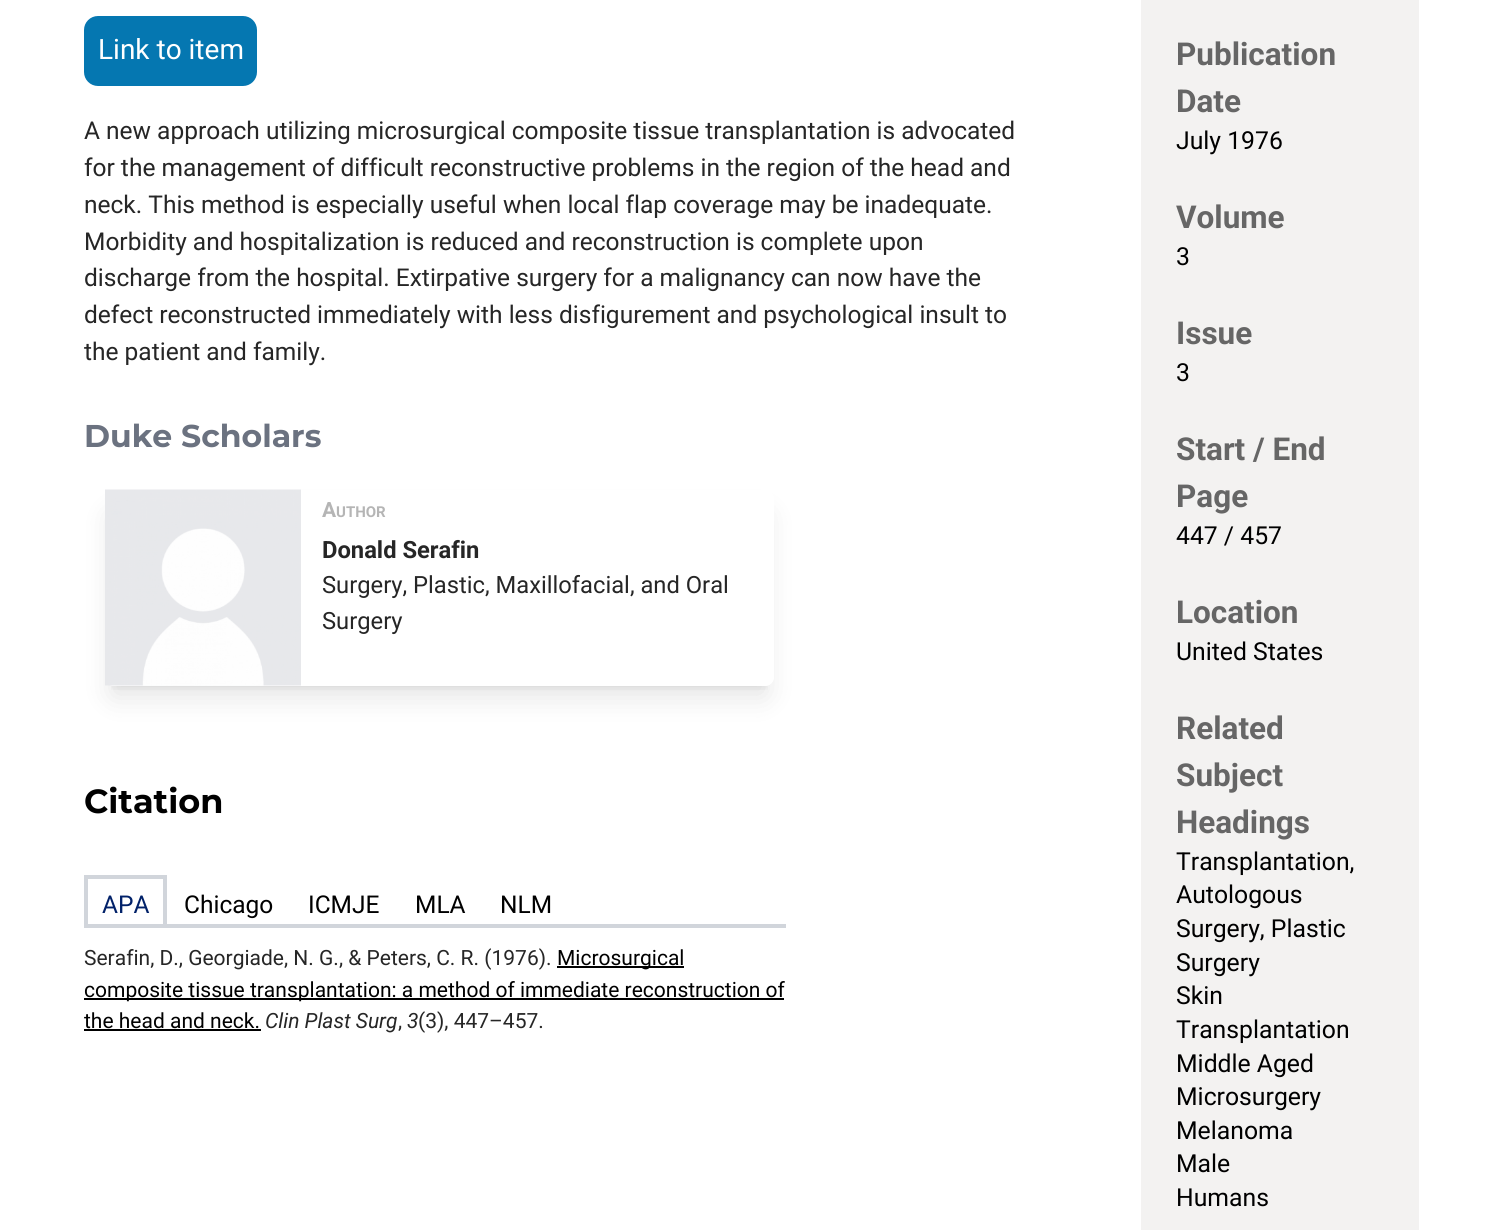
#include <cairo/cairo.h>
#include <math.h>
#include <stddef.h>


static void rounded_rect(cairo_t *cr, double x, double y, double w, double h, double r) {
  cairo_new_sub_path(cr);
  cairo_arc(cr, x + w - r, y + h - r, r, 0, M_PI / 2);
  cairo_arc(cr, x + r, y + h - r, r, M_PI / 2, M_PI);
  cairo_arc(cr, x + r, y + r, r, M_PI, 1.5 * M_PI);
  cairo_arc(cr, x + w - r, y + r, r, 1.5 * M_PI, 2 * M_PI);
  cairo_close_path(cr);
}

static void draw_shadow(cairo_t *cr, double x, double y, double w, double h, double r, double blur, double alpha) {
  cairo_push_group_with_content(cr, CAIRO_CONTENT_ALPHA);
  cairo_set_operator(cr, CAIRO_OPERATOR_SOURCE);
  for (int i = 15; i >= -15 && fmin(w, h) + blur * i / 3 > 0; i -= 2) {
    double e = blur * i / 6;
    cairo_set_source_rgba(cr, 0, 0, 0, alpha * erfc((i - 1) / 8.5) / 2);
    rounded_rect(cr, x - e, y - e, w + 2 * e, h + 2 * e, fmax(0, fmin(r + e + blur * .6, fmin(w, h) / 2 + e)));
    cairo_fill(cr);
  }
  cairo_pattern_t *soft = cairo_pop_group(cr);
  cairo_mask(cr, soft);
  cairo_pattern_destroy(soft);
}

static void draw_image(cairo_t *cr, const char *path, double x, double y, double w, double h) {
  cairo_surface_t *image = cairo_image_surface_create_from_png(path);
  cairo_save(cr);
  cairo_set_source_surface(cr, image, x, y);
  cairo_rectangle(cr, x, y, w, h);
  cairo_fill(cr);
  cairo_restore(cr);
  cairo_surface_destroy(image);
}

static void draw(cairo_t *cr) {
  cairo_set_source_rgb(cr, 1, 1, 1);
  cairo_paint(cr);
  cairo_set_source_rgb(cr, 5 / 255.0, 119 / 255.0, 177 / 255.0);
  rounded_rect(cr, 84, 16, 173, 70, 14);
  cairo_fill(cr);
  cairo_save(cr);
  cairo_rectangle(cr, 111, 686, 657, 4);
  cairo_clip(cr);
  cairo_set_source_rgb(cr, 0, 0, 0);
  draw_shadow(cr, 112, 504, 655, 182, 2, 5, 0.1);
  cairo_restore(cr);
  cairo_save(cr);
  cairo_set_fill_rule(cr, CAIRO_FILL_RULE_EVEN_ODD);
  cairo_new_path(cr);
  cairo_move_to(cr, 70, 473);
  cairo_line_to(cr, 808, 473);
  cairo_line_to(cr, 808, 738);
  cairo_line_to(cr, 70, 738);
  cairo_close_path(cr);
  cairo_move_to(cr, 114, 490);
  cairo_line_to(cr, 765, 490);
  cairo_curve_to(cr, 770, 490, 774, 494, 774, 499);
  cairo_line_to(cr, 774, 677);
  cairo_curve_to(cr, 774, 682, 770, 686, 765, 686);
  cairo_line_to(cr, 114, 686);
  cairo_curve_to(cr, 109, 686, 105, 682, 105, 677);
  cairo_line_to(cr, 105, 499);
  cairo_curve_to(cr, 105, 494, 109, 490, 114, 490);
  cairo_close_path(cr);
  cairo_clip(cr);
  cairo_set_source_rgb(cr, 0, 0, 0);
  draw_shadow(cr, 110, 513, 658, 185, 4, 13, 0.1);
  cairo_restore(cr);
  draw_image(cr, "images/1.png", 105, 489, 196, 197);
  cairo_set_source_rgb(cr, 209 / 255.0, 213 / 255.0, 219 / 255.0);
  cairo_rectangle(cr, 84, 875, 82, 4);
  cairo_fill(cr);
  cairo_rectangle(cr, 163, 875, 4, 53);
  cairo_fill(cr);
  cairo_rectangle(cr, 84, 875, 4, 53);
  cairo_fill(cr);
  cairo_rectangle(cr, 84, 924, 702, 4);
  cairo_fill(cr);
  cairo_set_source_rgb(cr, 0, 0, 0);
  cairo_rectangle(cr, 557, 966, 127, 2);
  cairo_fill(cr);
  cairo_rectangle(cr, 84, 998, 700, 2);
  cairo_fill(cr);
  cairo_rectangle(cr, 84, 1029, 177, 2);
  cairo_fill(cr);
  cairo_set_source_rgb(cr, 243 / 255.0, 242 / 255.0, 241 / 255.0);
  cairo_rectangle(cr, 1141, 0, 278, 1230);
  cairo_fill(cr);
  cairo_select_font_face(cr, "Roboto", CAIRO_FONT_SLANT_NORMAL, CAIRO_FONT_WEIGHT_NORMAL);
  cairo_set_font_size(cr, 28);
  cairo_set_source_rgb(cr, 1, 1, 1);
  cairo_move_to(cr, 98, 59);
  cairo_show_text(cr, "Link to item");
  cairo_set_font_size(cr, 24.5);
  cairo_set_source_rgb(cr, 38 / 255.0, 38 / 255.0, 38 / 255.0);
  cairo_move_to(cr, 84, 139);
  cairo_show_text(cr, "A new approach utilizing microsurgical composite tissue transplantation is advocated");
  cairo_move_to(cr, 84, 176);
  cairo_show_text(cr, "for the management of difficult reconstructive problems in the region of the head and");
  cairo_move_to(cr, 84, 213);
  cairo_show_text(cr, "neck. This method is especially useful when local flap coverage may be inadequate.");
  cairo_move_to(cr, 84, 250);
  cairo_show_text(cr, "Morbidity and hospitalization is reduced and reconstruction is complete upon");
  cairo_move_to(cr, 84, 286);
  cairo_show_text(cr, "discharge from the hospital. Extirpative surgery for a malignancy can now have the");
  cairo_move_to(cr, 84, 323);
  cairo_show_text(cr, "defect reconstructed immediately with less disfigurement and psychological insult to");
  cairo_move_to(cr, 84, 360);
  cairo_show_text(cr, "the patient and family.");
  cairo_select_font_face(cr, "Montserrat", CAIRO_FONT_SLANT_NORMAL, CAIRO_FONT_WEIGHT_BOLD);
  cairo_set_font_size(cr, 31.5);
  cairo_set_source_rgb(cr, 107 / 255.0, 114 / 255.0, 128 / 255.0);
  cairo_move_to(cr, 84, 447);
  cairo_show_text(cr, "Duke Scholars");
  cairo_select_font_face(cr, "Roboto", CAIRO_FONT_SLANT_NORMAL, CAIRO_FONT_WEIGHT_BOLD);
  cairo_set_font_size(cr, 21);
  cairo_set_source_rgb(cr, 181 / 255.0, 181 / 255.0, 181 / 255.0);
  cairo_move_to(cr, 322, 517);
  cairo_show_text(cr, "A");
  cairo_set_font_size(cr, 15);
  cairo_move_to(cr, 336, 517);
  cairo_show_text(cr, "UTHOR");
  cairo_set_font_size(cr, 23.75);
  cairo_set_source_rgb(cr, 38 / 255.0, 38 / 255.0, 38 / 255.0);
  cairo_move_to(cr, 322, 558);
  cairo_show_text(cr, "Donald Serafin");
  cairo_select_font_face(cr, "Roboto", CAIRO_FONT_SLANT_NORMAL, CAIRO_FONT_WEIGHT_NORMAL);
  cairo_move_to(cr, 322, 593);
  cairo_show_text(cr, "Surgery, Plastic, Maxillofacial, and Oral");
  cairo_move_to(cr, 322, 629);
  cairo_show_text(cr, "Surgery");
  cairo_select_font_face(cr, "Montserrat", CAIRO_FONT_SLANT_NORMAL, CAIRO_FONT_WEIGHT_BOLD);
  cairo_set_font_size(cr, 33.5);
  cairo_set_source_rgb(cr, 0, 0, 0);
  cairo_move_to(cr, 84, 813);
  cairo_show_text(cr, "Citation");
  cairo_select_font_face(cr, "Roboto", CAIRO_FONT_SLANT_NORMAL, CAIRO_FONT_WEIGHT_NORMAL);
  cairo_set_font_size(cr, 24.5);
  cairo_set_source_rgb(cr, 1 / 255.0, 33 / 255.0, 105 / 255.0);
  cairo_move_to(cr, 102, 913);
  cairo_show_text(cr, "APA");
  cairo_set_source_rgb(cr, 0, 0, 0);
  cairo_move_to(cr, 184, 913);
  cairo_show_text(cr, "Chicago");
  cairo_move_to(cr, 308, 913);
  cairo_show_text(cr, "ICMJE");
  cairo_move_to(cr, 415, 913);
  cairo_show_text(cr, "MLA");
  cairo_move_to(cr, 500, 913);
  cairo_show_text(cr, "NLM");
  cairo_set_font_size(cr, 21);
  cairo_set_source_rgb(cr, 38 / 255.0, 38 / 255.0, 38 / 255.0);
  cairo_move_to(cr, 84, 965);
  cairo_show_text(cr, "Serafin, D., Georgiade, N. G., & Peters, C. R. (1976).");
  cairo_set_source_rgb(cr, 0, 0, 0);
  cairo_move_to(cr, 557, 965);
  cairo_show_text(cr, "Microsurgical");
  cairo_move_to(cr, 84, 997);
  cairo_show_text(cr, "composite tissue transplantation: a method of immediate reconstruction of");
  cairo_move_to(cr, 84, 1028);
  cairo_show_text(cr, "the head and neck.");
  cairo_select_font_face(cr, "Roboto", CAIRO_FONT_SLANT_ITALIC, CAIRO_FONT_WEIGHT_NORMAL);
  cairo_set_source_rgb(cr, 38 / 255.0, 38 / 255.0, 38 / 255.0);
  cairo_move_to(cr, 265, 1028);
  cairo_show_text(cr, "Clin Plast Surg");
  cairo_select_font_face(cr, "Roboto", CAIRO_FONT_SLANT_NORMAL, CAIRO_FONT_WEIGHT_NORMAL);
  cairo_move_to(cr, 398, 1028);
  cairo_show_text(cr, ",");
  cairo_select_font_face(cr, "Roboto", CAIRO_FONT_SLANT_ITALIC, CAIRO_FONT_WEIGHT_NORMAL);
  cairo_move_to(cr, 407, 1028);
  cairo_show_text(cr, "3");
  cairo_select_font_face(cr, "Roboto", CAIRO_FONT_SLANT_NORMAL, CAIRO_FONT_WEIGHT_NORMAL);
  cairo_move_to(cr, 418, 1028);
  cairo_show_text(cr, "(3), 447–457.");
  cairo_select_font_face(cr, "Roboto", CAIRO_FONT_SLANT_NORMAL, CAIRO_FONT_WEIGHT_BOLD);
  cairo_set_font_size(cr, 31.5);
  cairo_set_source_rgb(cr, 102 / 255.0, 102 / 255.0, 102 / 255.0);
  cairo_move_to(cr, 1176, 65);
  cairo_show_text(cr, "Publication");
  cairo_move_to(cr, 1176, 112);
  cairo_show_text(cr, "Date");
  cairo_select_font_face(cr, "Roboto", CAIRO_FONT_SLANT_NORMAL, CAIRO_FONT_WEIGHT_NORMAL);
  cairo_set_font_size(cr, 24.75);
  cairo_set_source_rgb(cr, 0, 0, 0);
  cairo_move_to(cr, 1176, 149);
  cairo_show_text(cr, "July 1976");
  cairo_select_font_face(cr, "Roboto", CAIRO_FONT_SLANT_NORMAL, CAIRO_FONT_WEIGHT_BOLD);
  cairo_set_font_size(cr, 31.5);
  cairo_set_source_rgb(cr, 102 / 255.0, 102 / 255.0, 102 / 255.0);
  cairo_move_to(cr, 1176, 228);
  cairo_show_text(cr, "Volume");
  cairo_select_font_face(cr, "Roboto", CAIRO_FONT_SLANT_NORMAL, CAIRO_FONT_WEIGHT_NORMAL);
  cairo_set_font_size(cr, 24.75);
  cairo_set_source_rgb(cr, 0, 0, 0);
  cairo_move_to(cr, 1176, 265);
  cairo_show_text(cr, "3");
  cairo_select_font_face(cr, "Roboto", CAIRO_FONT_SLANT_NORMAL, CAIRO_FONT_WEIGHT_BOLD);
  cairo_set_font_size(cr, 31.5);
  cairo_set_source_rgb(cr, 102 / 255.0, 102 / 255.0, 102 / 255.0);
  cairo_move_to(cr, 1176, 344);
  cairo_show_text(cr, "Issue");
  cairo_select_font_face(cr, "Roboto", CAIRO_FONT_SLANT_NORMAL, CAIRO_FONT_WEIGHT_NORMAL);
  cairo_set_font_size(cr, 24.75);
  cairo_set_source_rgb(cr, 0, 0, 0);
  cairo_move_to(cr, 1176, 381);
  cairo_show_text(cr, "3");
  cairo_select_font_face(cr, "Roboto", CAIRO_FONT_SLANT_NORMAL, CAIRO_FONT_WEIGHT_BOLD);
  cairo_set_font_size(cr, 31.5);
  cairo_set_source_rgb(cr, 102 / 255.0, 102 / 255.0, 102 / 255.0);
  cairo_move_to(cr, 1176, 460);
  cairo_show_text(cr, "Start / End");
  cairo_move_to(cr, 1176, 507);
  cairo_show_text(cr, "Page");
  cairo_select_font_face(cr, "Roboto", CAIRO_FONT_SLANT_NORMAL, CAIRO_FONT_WEIGHT_NORMAL);
  cairo_set_font_size(cr, 24.75);
  cairo_set_source_rgb(cr, 0, 0, 0);
  cairo_move_to(cr, 1176, 544);
  cairo_show_text(cr, "447 / 457");
  cairo_select_font_face(cr, "Roboto", CAIRO_FONT_SLANT_NORMAL, CAIRO_FONT_WEIGHT_BOLD);
  cairo_set_font_size(cr, 31.5);
  cairo_set_source_rgb(cr, 102 / 255.0, 102 / 255.0, 102 / 255.0);
  cairo_move_to(cr, 1176, 623);
  cairo_show_text(cr, "Location");
  cairo_select_font_face(cr, "Roboto", CAIRO_FONT_SLANT_NORMAL, CAIRO_FONT_WEIGHT_NORMAL);
  cairo_set_font_size(cr, 24.75);
  cairo_set_source_rgb(cr, 0, 0, 0);
  cairo_move_to(cr, 1176, 660);
  cairo_show_text(cr, "United States");
  cairo_select_font_face(cr, "Roboto", CAIRO_FONT_SLANT_NORMAL, CAIRO_FONT_WEIGHT_BOLD);
  cairo_set_font_size(cr, 31.5);
  cairo_set_source_rgb(cr, 102 / 255.0, 102 / 255.0, 102 / 255.0);
  cairo_move_to(cr, 1176, 739);
  cairo_show_text(cr, "Related");
  cairo_move_to(cr, 1176, 786);
  cairo_show_text(cr, "Subject");
  cairo_move_to(cr, 1176, 833);
  cairo_show_text(cr, "Headings");
  cairo_select_font_face(cr, "Roboto", CAIRO_FONT_SLANT_NORMAL, CAIRO_FONT_WEIGHT_NORMAL);
  cairo_set_font_size(cr, 24.75);
  cairo_set_source_rgb(cr, 0, 0, 0);
  cairo_move_to(cr, 1176, 870);
  cairo_show_text(cr, "Transplantation,");
  cairo_move_to(cr, 1176, 903);
  cairo_show_text(cr, "Autologous");
  cairo_move_to(cr, 1176, 937);
  cairo_show_text(cr, "Surgery, Plastic");
  cairo_move_to(cr, 1176, 971);
  cairo_show_text(cr, "Surgery");
  cairo_move_to(cr, 1176, 1004);
  cairo_show_text(cr, "Skin");
  cairo_move_to(cr, 1176, 1038);
  cairo_show_text(cr, "Transplantation");
  cairo_move_to(cr, 1176, 1072);
  cairo_show_text(cr, "Middle Aged");
  cairo_move_to(cr, 1176, 1105);
  cairo_show_text(cr, "Microsurgery");
  cairo_move_to(cr, 1176, 1139);
  cairo_show_text(cr, "Melanoma");
  cairo_move_to(cr, 1176, 1172);
  cairo_show_text(cr, "Male");
  cairo_move_to(cr, 1176, 1206);
  cairo_show_text(cr, "Humans");
}

int main(void) {
  cairo_surface_t *surface = cairo_image_surface_create(CAIRO_FORMAT_RGB24, 1503, 1230);
  cairo_t *cr = cairo_create(surface);
  cairo_font_options_t *options = cairo_font_options_create();
  cairo_font_options_set_hint_metrics(options, CAIRO_HINT_METRICS_OFF);
  cairo_font_options_set_hint_style(options, CAIRO_HINT_STYLE_NONE);
  cairo_set_font_options(cr, options);
  cairo_set_miter_limit(cr, 4);
  draw(cr);
  cairo_surface_write_to_png(surface, "out.png");
  cairo_font_options_destroy(options);
  cairo_destroy(cr);
  cairo_surface_destroy(surface);
  return 0;
}
